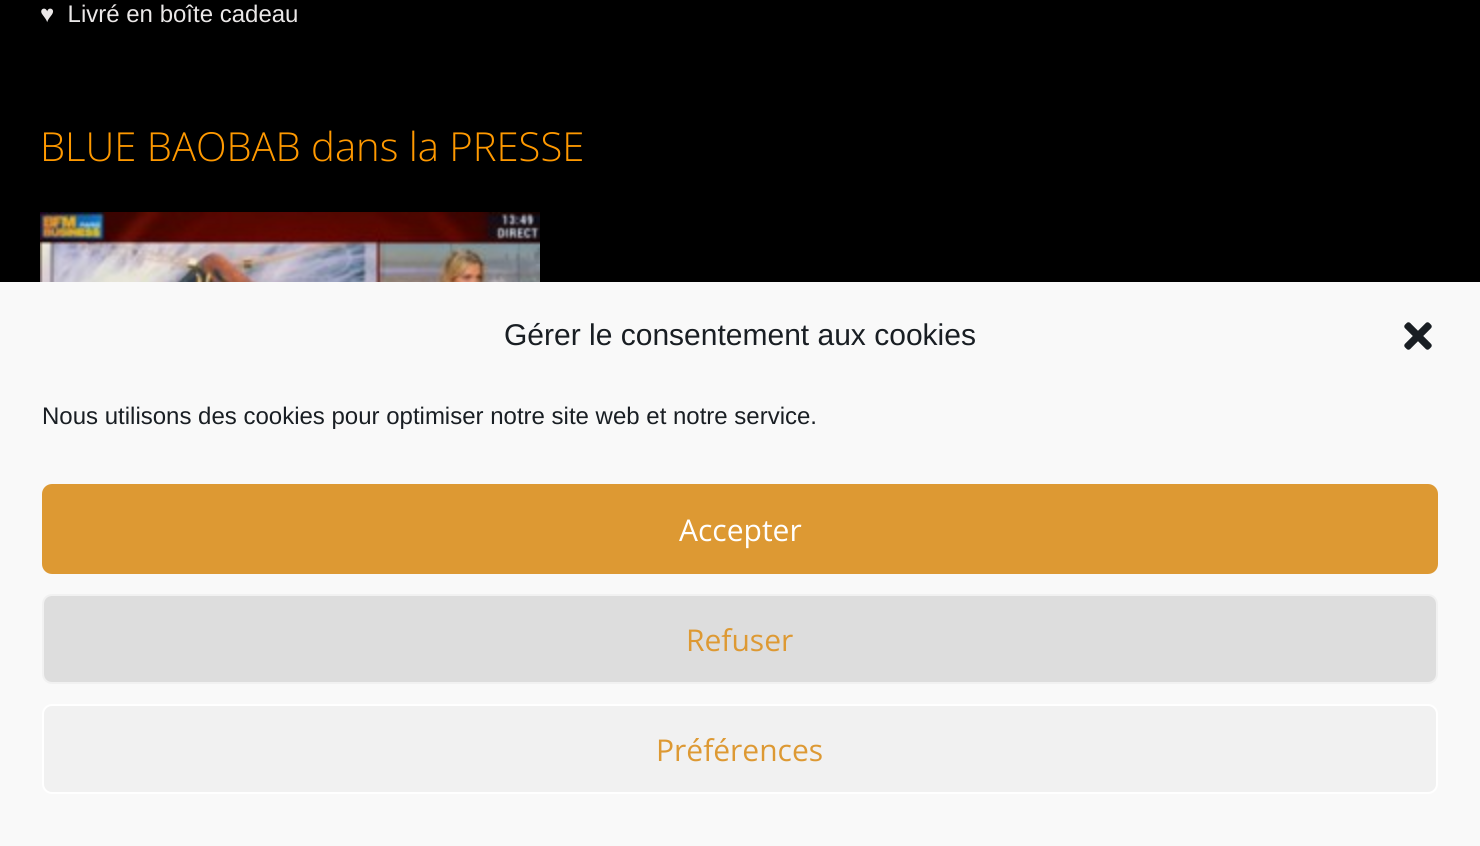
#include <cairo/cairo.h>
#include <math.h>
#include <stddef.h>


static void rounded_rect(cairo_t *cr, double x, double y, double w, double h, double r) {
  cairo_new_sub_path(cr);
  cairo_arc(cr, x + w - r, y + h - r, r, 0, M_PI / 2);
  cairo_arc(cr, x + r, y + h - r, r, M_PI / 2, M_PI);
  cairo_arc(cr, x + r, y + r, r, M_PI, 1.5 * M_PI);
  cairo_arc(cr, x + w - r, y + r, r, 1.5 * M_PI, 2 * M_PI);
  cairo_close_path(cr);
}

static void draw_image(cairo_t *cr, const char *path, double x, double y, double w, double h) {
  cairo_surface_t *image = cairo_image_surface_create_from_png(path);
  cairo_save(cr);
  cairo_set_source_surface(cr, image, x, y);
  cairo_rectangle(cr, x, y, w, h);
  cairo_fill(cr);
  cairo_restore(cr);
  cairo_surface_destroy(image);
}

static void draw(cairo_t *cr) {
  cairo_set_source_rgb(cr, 0, 0, 0);
  cairo_paint(cr);
  draw_image(cr, "images/1.png", 40, 212, 500, 70);
  cairo_set_source_rgb(cr, 249 / 255.0, 249 / 255.0, 249 / 255.0);
  cairo_rectangle(cr, 0, 282, 1480, 564);
  cairo_fill(cr);
  draw_image(cr, "images/2.png", 1404, 322, 28, 28);
  cairo_set_source_rgb(cr, 221 / 255.0, 153 / 255.0, 51 / 255.0);
  rounded_rect(cr, 43, 485, 1394, 88, 9);
  cairo_fill_preserve(cr);
  cairo_stroke(cr);
  cairo_set_source_rgb(cr, 221 / 255.0, 221 / 255.0, 221 / 255.0);
  rounded_rect(cr, 43, 595, 1394, 88, 9);
  cairo_fill_preserve(cr);
  cairo_set_source_rgb(cr, 241 / 255.0, 241 / 255.0, 241 / 255.0);
  cairo_stroke(cr);
  rounded_rect(cr, 43, 705, 1394, 88, 9);
  cairo_fill_preserve(cr);
  cairo_set_source_rgb(cr, 1, 1, 1);
  cairo_stroke(cr);
  cairo_select_font_face(cr, "Liberation Sans", CAIRO_FONT_SLANT_NORMAL, CAIRO_FONT_WEIGHT_NORMAL);
  cairo_set_font_size(cr, 24);
  cairo_set_source_rgb(cr, 235 / 255.0, 232 / 255.0, 232 / 255.0);
  cairo_move_to(cr, 40, 22);
  cairo_show_text(cr, "♥  Livré en boîte cadeau");
  cairo_select_font_face(cr, "Open Sans Light", CAIRO_FONT_SLANT_NORMAL, CAIRO_FONT_WEIGHT_NORMAL);
  cairo_set_font_size(cr, 40);
  cairo_set_source_rgb(cr, 1, 153 / 255.0, 0);
  cairo_move_to(cr, 40, 161);
  cairo_show_text(cr, "BLUE BAOBAB dans la PRESSE");
  cairo_select_font_face(cr, "Liberation Sans", CAIRO_FONT_SLANT_NORMAL, CAIRO_FONT_WEIGHT_NORMAL);
  cairo_set_font_size(cr, 30);
  cairo_set_source_rgb(cr, 25 / 255.0, 30 / 255.0, 35 / 255.0);
  cairo_move_to(cr, 504, 345);
  cairo_show_text(cr, "Gérer le consentement aux cookies");
  cairo_set_font_size(cr, 24);
  cairo_move_to(cr, 42, 424);
  cairo_show_text(cr, "Nous utilisons des cookies pour optimiser notre site web et notre service.");
  cairo_select_font_face(cr, "Open Sans", CAIRO_FONT_SLANT_NORMAL, CAIRO_FONT_WEIGHT_NORMAL);
  cairo_set_font_size(cr, 30);
  cairo_set_source_rgb(cr, 1, 1, 1);
  cairo_move_to(cr, 679, 541);
  cairo_show_text(cr, "Accepter");
  cairo_set_source_rgb(cr, 221 / 255.0, 153 / 255.0, 51 / 255.0);
  cairo_move_to(cr, 686, 651);
  cairo_show_text(cr, "Refuser");
  cairo_move_to(cr, 656, 761);
  cairo_show_text(cr, "Préférences");
}

int main(void) {
  cairo_surface_t *surface = cairo_image_surface_create(CAIRO_FORMAT_RGB24, 1480, 846);
  cairo_t *cr = cairo_create(surface);
  cairo_font_options_t *options = cairo_font_options_create();
  cairo_font_options_set_hint_metrics(options, CAIRO_HINT_METRICS_OFF);
  cairo_font_options_set_hint_style(options, CAIRO_HINT_STYLE_NONE);
  cairo_set_font_options(cr, options);
  cairo_set_miter_limit(cr, 4);
  draw(cr);
  cairo_surface_write_to_png(surface, "out.png");
  cairo_font_options_destroy(options);
  cairo_destroy(cr);
  cairo_surface_destroy(surface);
  return 0;
}
